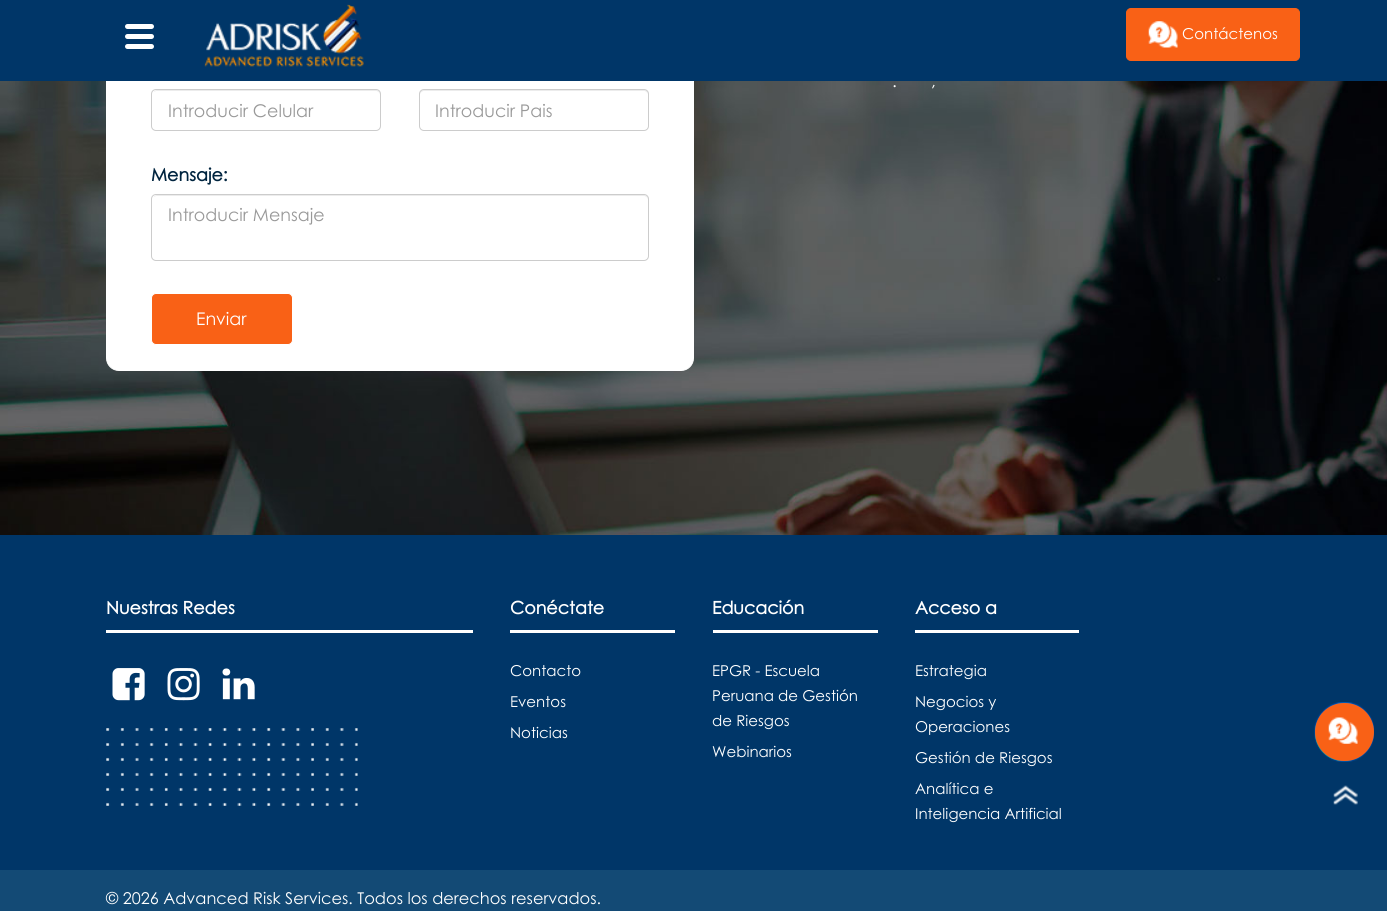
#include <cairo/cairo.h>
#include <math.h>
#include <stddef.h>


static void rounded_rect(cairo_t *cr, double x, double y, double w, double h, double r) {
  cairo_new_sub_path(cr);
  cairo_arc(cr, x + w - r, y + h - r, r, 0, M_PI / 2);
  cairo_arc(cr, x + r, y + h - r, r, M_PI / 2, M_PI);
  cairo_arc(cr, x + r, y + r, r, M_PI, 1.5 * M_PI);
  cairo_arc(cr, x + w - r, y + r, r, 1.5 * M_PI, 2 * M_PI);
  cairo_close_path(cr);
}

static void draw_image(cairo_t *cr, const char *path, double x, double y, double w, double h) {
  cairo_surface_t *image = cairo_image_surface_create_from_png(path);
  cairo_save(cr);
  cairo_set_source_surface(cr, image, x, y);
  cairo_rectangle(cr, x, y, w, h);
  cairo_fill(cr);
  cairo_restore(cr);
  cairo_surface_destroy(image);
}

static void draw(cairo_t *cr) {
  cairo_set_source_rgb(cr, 1, 1, 1);
  cairo_paint(cr);
  draw_image(cr, "images/1.png", 0, 81, 1387, 454);
  cairo_set_source_rgb(cr, 1, 1, 1);
  rounded_rect(cr, 106.5, -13.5, 587, 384, 12.5);
  cairo_fill_preserve(cr);
  cairo_set_line_width(cr, 1);
  cairo_stroke(cr);
  cairo_set_source_rgb(cr, 0, 54 / 255.0, 104 / 255.0);
  cairo_rectangle(cr, 0, 0, 1387, 81);
  cairo_fill(cr);
  cairo_set_source_rgb(cr, 1, 1, 1);
  rounded_rect(cr, 125, 24, 29, 5, 2.5);
  cairo_fill(cr);
  rounded_rect(cr, 125, 34, 29, 5, 2.5);
  cairo_fill(cr);
  rounded_rect(cr, 125, 44, 29, 5, 2.5);
  cairo_fill(cr);
  draw_image(cr, "images/2.png", 204, 4, 160, 63);
  cairo_set_source_rgb(cr, 249 / 255.0, 97 / 255.0, 22 / 255.0);
  rounded_rect(cr, 1126.5, 8.5, 173, 52, 4.5);
  cairo_fill_preserve(cr);
  cairo_stroke(cr);
  draw_image(cr, "images/3.png", 1148, 21, 30, 27);
  cairo_set_source_rgb(cr, 236 / 255.0, 236 / 255.0, 236 / 255.0);
  cairo_new_path(cr);
  cairo_move_to(cr, 156, 91);
  cairo_line_to(cr, 376, 91);
  cairo_curve_to(cr, 378, 91, 380, 93, 380, 95);
  cairo_line_to(cr, 380, 94);
  cairo_curve_to(cr, 380, 92, 378, 90, 376, 90);
  cairo_line_to(cr, 157, 90);
  cairo_curve_to(cr, 156, 90, 154, 91, 154, 92);
  cairo_close_path(cr);
  cairo_fill(cr);
  rounded_rect(cr, 151.5, 89.5, 229, 41, 4.5);
  cairo_set_source_rgb(cr, 204 / 255.0, 204 / 255.0, 204 / 255.0);
  cairo_stroke(cr);
  cairo_set_source_rgb(cr, 236 / 255.0, 236 / 255.0, 236 / 255.0);
  cairo_new_path(cr);
  cairo_move_to(cr, 424, 91);
  cairo_line_to(cr, 644, 91);
  cairo_curve_to(cr, 646, 91, 648, 93, 648, 95);
  cairo_curve_to(cr, 648, 92, 647, 90, 644, 90);
  cairo_line_to(cr, 424, 90);
  cairo_curve_to(cr, 421, 90, 420, 92, 420, 95);
  cairo_curve_to(cr, 420, 93, 422, 91, 424, 91);
  cairo_close_path(cr);
  cairo_fill(cr);
  rounded_rect(cr, 419.5, 89.5, 229, 41, 4.5);
  cairo_set_source_rgb(cr, 204 / 255.0, 204 / 255.0, 204 / 255.0);
  cairo_stroke(cr);
  cairo_set_source_rgb(cr, 236 / 255.0, 236 / 255.0, 236 / 255.0);
  cairo_new_path(cr);
  cairo_move_to(cr, 156, 196);
  cairo_line_to(cr, 644, 196);
  cairo_curve_to(cr, 646, 196, 648, 198, 648, 200);
  cairo_line_to(cr, 648, 199);
  cairo_curve_to(cr, 648, 197, 646, 195, 644, 195);
  cairo_line_to(cr, 157, 195);
  cairo_curve_to(cr, 156, 195, 154, 196, 154, 197);
  cairo_close_path(cr);
  cairo_fill(cr);
  rounded_rect(cr, 151.5, 194.5, 497, 66, 4.5);
  cairo_set_source_rgb(cr, 204 / 255.0, 204 / 255.0, 204 / 255.0);
  cairo_stroke(cr);
  cairo_set_source_rgb(cr, 249 / 255.0, 97 / 255.0, 22 / 255.0);
  rounded_rect(cr, 151.5, 293.5, 141, 51, 4.5);
  cairo_fill_preserve(cr);
  cairo_set_source_rgb(cr, 1, 1, 1);
  cairo_stroke(cr);
  cairo_set_source_rgb(cr, 0, 54 / 255.0, 104 / 255.0);
  cairo_rectangle(cr, 0, 535, 1387, 335);
  cairo_fill(cr);
  cairo_set_source_rgb(cr, 1, 1, 1);
  cairo_rectangle(cr, 106, 630, 367, 3);
  cairo_fill(cr);
  draw_image(cr, "images/4.png", 112, 668, 33, 33);
  draw_image(cr, "images/5.png", 167, 668, 33, 33);
  draw_image(cr, "images/6.png", 222, 668, 33, 32);
  draw_image(cr, "images/7.png", 106, 728, 252, 78);
  cairo_rectangle(cr, 510, 630, 165, 3);
  cairo_fill(cr);
  cairo_rectangle(cr, 713, 630, 165, 3);
  cairo_fill(cr);
  cairo_rectangle(cr, 915, 630, 164, 3);
  cairo_fill(cr);
  cairo_set_source_rgb(cr, 19 / 255.0, 74 / 255.0, 117 / 255.0);
  cairo_rectangle(cr, 0, 870, 1387, 41);
  cairo_fill(cr);
  cairo_set_source_rgb(cr, 27 / 255.0, 215 / 255.0, 68 / 255.0);
  cairo_arc(cr, 1343, 733, 28, 0, 2 * M_PI);
  cairo_fill(cr);
  draw_image(cr, "images/8.png", 1314, 702, 60, 60);
  cairo_set_source_rgb(cr, 249 / 255.0, 97 / 255.0, 22 / 255.0);
  rounded_rect(cr, 1315, 703, 59, 58, 29);
  cairo_fill(cr);
  draw_image(cr, "images/9.png", 1328, 717, 30, 27);
  draw_image(cr, "images/10.png", 1333, 785, 25, 20);
  cairo_select_font_face(cr, "Century Gothic", CAIRO_FONT_SLANT_NORMAL, CAIRO_FONT_WEIGHT_NORMAL);
  cairo_set_font_size(cr, 15);
  cairo_set_source_rgb(cr, 1, 1, 1);
  cairo_move_to(cr, 1182, 39);
  cairo_show_text(cr, "Contáctenos");
  cairo_set_font_size(cr, 17.5);
  cairo_move_to(cr, 892, 87);
  cairo_show_text(cr, ".");
  cairo_move_to(cr, 931, 87);
  cairo_show_text(cr, ",");
  cairo_set_source_rgb(cr, 153 / 255.0, 153 / 255.0, 153 / 255.0);
  cairo_move_to(cr, 168, 117);
  cairo_show_text(cr, "Introducir Celular");
  cairo_move_to(cr, 435, 117);
  cairo_show_text(cr, "Introducir Pais");
  cairo_select_font_face(cr, "Century Gothic", CAIRO_FONT_SLANT_NORMAL, CAIRO_FONT_WEIGHT_BOLD);
  cairo_set_source_rgb(cr, 0, 36 / 255.0, 63 / 255.0);
  cairo_move_to(cr, 151, 181);
  cairo_show_text(cr, "Mensaje:");
  cairo_select_font_face(cr, "Century Gothic", CAIRO_FONT_SLANT_NORMAL, CAIRO_FONT_WEIGHT_NORMAL);
  cairo_set_source_rgb(cr, 153 / 255.0, 153 / 255.0, 153 / 255.0);
  cairo_move_to(cr, 168, 221);
  cairo_show_text(cr, "Introducir Mensaje");
  cairo_set_source_rgb(cr, 1, 1, 1);
  cairo_move_to(cr, 196, 325);
  cairo_show_text(cr, "Enviar");
  cairo_select_font_face(cr, "Century Gothic", CAIRO_FONT_SLANT_NORMAL, CAIRO_FONT_WEIGHT_BOLD);
  cairo_move_to(cr, 106, 614);
  cairo_show_text(cr, "Nuestras Redes");
  cairo_move_to(cr, 510, 614);
  cairo_show_text(cr, "Conéctate");
  cairo_select_font_face(cr, "Century Gothic", CAIRO_FONT_SLANT_NORMAL, CAIRO_FONT_WEIGHT_NORMAL);
  cairo_set_font_size(cr, 15);
  cairo_move_to(cr, 510, 676);
  cairo_show_text(cr, "Contacto");
  cairo_move_to(cr, 510, 707);
  cairo_show_text(cr, "Eventos");
  cairo_move_to(cr, 510, 738);
  cairo_show_text(cr, "Noticias");
  cairo_select_font_face(cr, "Century Gothic", CAIRO_FONT_SLANT_NORMAL, CAIRO_FONT_WEIGHT_BOLD);
  cairo_set_font_size(cr, 17.5);
  cairo_move_to(cr, 712, 614);
  cairo_show_text(cr, "Educación");
  cairo_select_font_face(cr, "Century Gothic", CAIRO_FONT_SLANT_NORMAL, CAIRO_FONT_WEIGHT_NORMAL);
  cairo_set_font_size(cr, 15);
  cairo_move_to(cr, 712, 676);
  cairo_show_text(cr, "EPGR - Escuela");
  cairo_move_to(cr, 712, 701);
  cairo_show_text(cr, "Peruana de Gestión");
  cairo_move_to(cr, 712, 726);
  cairo_show_text(cr, "de Riesgos");
  cairo_move_to(cr, 712, 757);
  cairo_show_text(cr, "Webinarios");
  cairo_select_font_face(cr, "Century Gothic", CAIRO_FONT_SLANT_NORMAL, CAIRO_FONT_WEIGHT_BOLD);
  cairo_set_font_size(cr, 17.5);
  cairo_move_to(cr, 915, 614);
  cairo_show_text(cr, "Acceso a");
  cairo_select_font_face(cr, "Century Gothic", CAIRO_FONT_SLANT_NORMAL, CAIRO_FONT_WEIGHT_NORMAL);
  cairo_set_font_size(cr, 15);
  cairo_move_to(cr, 915, 676);
  cairo_show_text(cr, "Estrategia");
  cairo_move_to(cr, 915, 707);
  cairo_show_text(cr, "Negocios y");
  cairo_move_to(cr, 915, 732);
  cairo_show_text(cr, "Operaciones");
  cairo_move_to(cr, 915, 763);
  cairo_show_text(cr, "Gestión de Riesgos");
  cairo_move_to(cr, 915, 794);
  cairo_show_text(cr, "Analítica e");
  cairo_move_to(cr, 915, 819);
  cairo_show_text(cr, "Inteligencia Artificial");
  cairo_set_font_size(cr, 16.25);
  cairo_move_to(cr, 106, 904);
  cairo_show_text(cr, "© 2026 Advanced Risk Services. Todos los derechos reservados.");
}

int main(void) {
  cairo_surface_t *surface = cairo_image_surface_create(CAIRO_FORMAT_RGB24, 1387, 911);
  cairo_t *cr = cairo_create(surface);
  cairo_font_options_t *options = cairo_font_options_create();
  cairo_font_options_set_hint_metrics(options, CAIRO_HINT_METRICS_OFF);
  cairo_font_options_set_hint_style(options, CAIRO_HINT_STYLE_NONE);
  cairo_set_font_options(cr, options);
  cairo_set_miter_limit(cr, 4);
  draw(cr);
  cairo_surface_write_to_png(surface, "out.png");
  cairo_font_options_destroy(options);
  cairo_destroy(cr);
  cairo_surface_destroy(surface);
  return 0;
}
